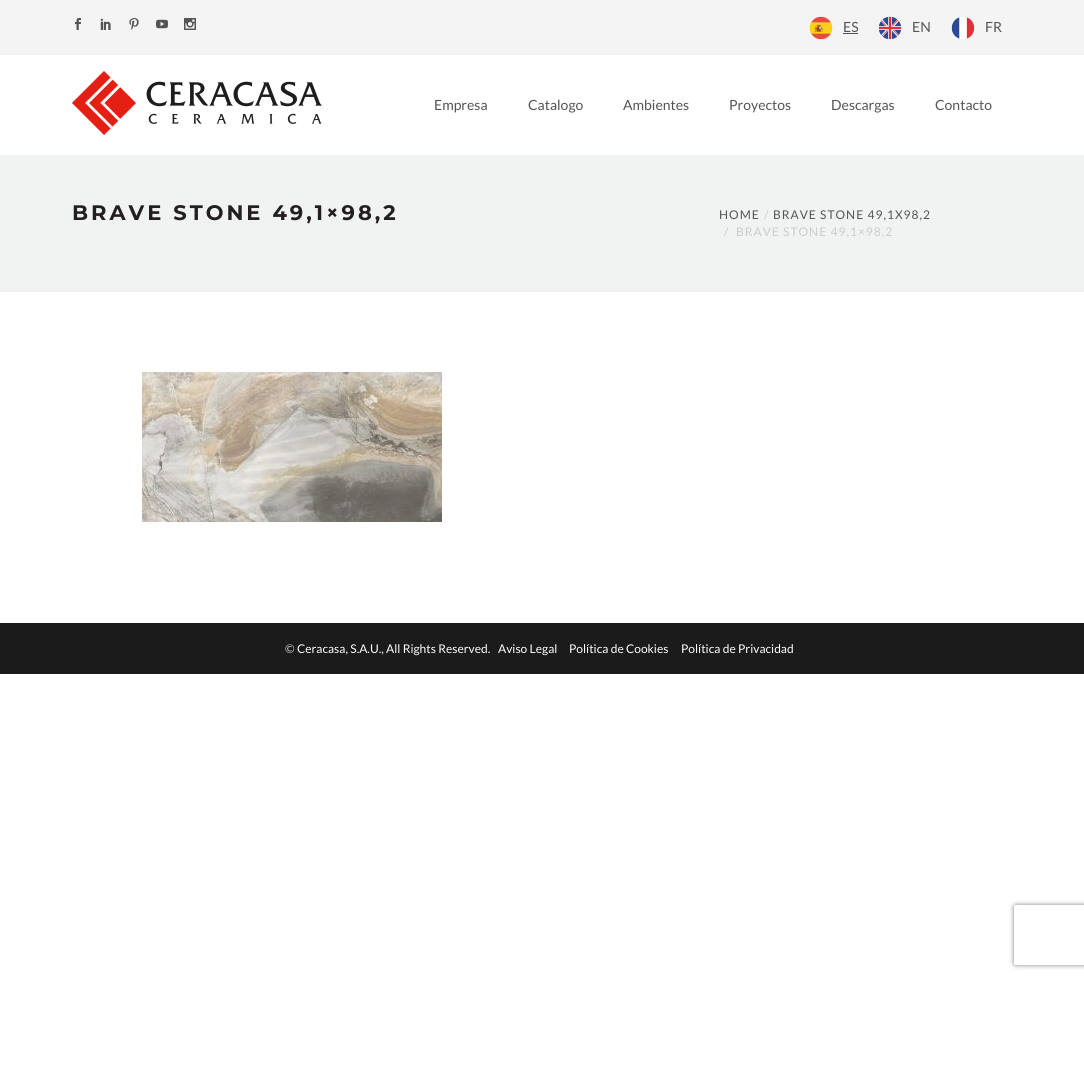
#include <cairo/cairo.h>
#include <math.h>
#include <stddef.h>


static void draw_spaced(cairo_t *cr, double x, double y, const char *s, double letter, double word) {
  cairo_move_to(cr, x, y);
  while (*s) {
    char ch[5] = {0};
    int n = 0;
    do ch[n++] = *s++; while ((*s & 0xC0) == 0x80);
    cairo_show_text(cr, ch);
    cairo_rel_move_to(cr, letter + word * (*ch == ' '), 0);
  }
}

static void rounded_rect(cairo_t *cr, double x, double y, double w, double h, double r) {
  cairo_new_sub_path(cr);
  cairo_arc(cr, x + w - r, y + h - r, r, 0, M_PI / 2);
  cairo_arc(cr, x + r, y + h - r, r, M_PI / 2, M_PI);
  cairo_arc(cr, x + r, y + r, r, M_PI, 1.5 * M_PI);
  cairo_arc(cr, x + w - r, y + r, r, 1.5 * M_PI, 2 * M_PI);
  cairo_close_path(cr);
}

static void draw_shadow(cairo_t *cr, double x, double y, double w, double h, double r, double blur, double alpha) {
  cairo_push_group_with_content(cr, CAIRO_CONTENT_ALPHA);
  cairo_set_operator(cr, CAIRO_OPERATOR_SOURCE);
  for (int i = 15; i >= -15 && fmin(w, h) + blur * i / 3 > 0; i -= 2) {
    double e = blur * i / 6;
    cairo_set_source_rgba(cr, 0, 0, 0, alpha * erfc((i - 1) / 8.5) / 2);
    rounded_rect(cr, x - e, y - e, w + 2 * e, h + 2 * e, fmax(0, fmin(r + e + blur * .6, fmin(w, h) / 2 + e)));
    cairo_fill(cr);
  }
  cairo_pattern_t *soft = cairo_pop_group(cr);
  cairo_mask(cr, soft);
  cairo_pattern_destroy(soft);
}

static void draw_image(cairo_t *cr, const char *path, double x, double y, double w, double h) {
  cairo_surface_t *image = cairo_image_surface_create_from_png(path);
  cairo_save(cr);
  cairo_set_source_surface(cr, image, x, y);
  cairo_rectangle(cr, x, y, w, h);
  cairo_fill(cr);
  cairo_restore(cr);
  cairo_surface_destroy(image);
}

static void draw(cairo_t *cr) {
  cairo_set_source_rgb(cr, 1, 1, 1);
  cairo_paint(cr);
  cairo_set_source_rgb(cr, 244 / 255.0, 244 / 255.0, 244 / 255.0);
  cairo_rectangle(cr, 0, 0, 1084, 55);
  cairo_fill(cr);
  draw_image(cr, "images/1.png", 75, 18, 6, 12);
  draw_image(cr, "images/2.png", 100, 18, 11, 12);
  draw_image(cr, "images/3.png", 129, 18, 10, 12);
  draw_image(cr, "images/4.png", 156, 19, 12, 10);
  draw_image(cr, "images/5.png", 184, 18, 12, 12);
  draw_image(cr, "images/6.png", 809, 16, 24, 24);
  cairo_set_source_rgb(cr, 84 / 255.0, 84 / 255.0, 82 / 255.0);
  cairo_rectangle(cr, 843, 33, 15, 1);
  cairo_fill(cr);
  draw_image(cr, "images/7.png", 878, 16, 24, 24);
  draw_image(cr, "images/8.png", 951, 17, 24, 22);
  draw_image(cr, "images/9.png", 72, 71, 250, 64);
  cairo_set_source_rgb(cr, 241 / 255.0, 242 / 255.0, 242 / 255.0);
  cairo_rectangle(cr, 0, 155, 1084, 137);
  cairo_fill(cr);
  draw_image(cr, "images/10.png", 142, 372, 300, 150);
  cairo_set_source_rgb(cr, 27 / 255.0, 27 / 255.0, 27 / 255.0);
  cairo_rectangle(cr, 0, 623, 1084, 51);
  cairo_fill(cr);
  cairo_save(cr);
  cairo_set_fill_rule(cr, CAIRO_FILL_RULE_EVEN_ODD);
  cairo_new_path(cr);
  cairo_move_to(cr, 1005, 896);
  cairo_line_to(cr, 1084, 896);
  cairo_line_to(cr, 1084, 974);
  cairo_line_to(cr, 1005, 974);
  cairo_close_path(cr);
  cairo_move_to(cr, 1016, 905);
  cairo_line_to(cr, 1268, 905);
  cairo_curve_to(cr, 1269, 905, 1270, 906, 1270, 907);
  cairo_line_to(cr, 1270, 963);
  cairo_curve_to(cr, 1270, 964, 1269, 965, 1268, 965);
  cairo_line_to(cr, 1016, 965);
  cairo_curve_to(cr, 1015, 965, 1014, 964, 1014, 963);
  cairo_line_to(cr, 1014, 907);
  cairo_curve_to(cr, 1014, 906, 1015, 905, 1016, 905);
  cairo_close_path(cr);
  cairo_clip(cr);
  cairo_set_source_rgb(cr, 128 / 255.0, 128 / 255.0, 128 / 255.0);
  draw_shadow(cr, 1014, 905, 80, 60, 2, 2.5, 1);
  cairo_restore(cr);
  cairo_select_font_face(cr, "Lato", CAIRO_FONT_SLANT_NORMAL, CAIRO_FONT_WEIGHT_NORMAL);
  cairo_set_font_size(cr, 14);
  cairo_set_source_rgb(cr, 84 / 255.0, 84 / 255.0, 82 / 255.0);
  cairo_move_to(cr, 843, 32);
  cairo_show_text(cr, "ES");
  cairo_move_to(cr, 912, 32);
  cairo_show_text(cr, "EN");
  cairo_move_to(cr, 985, 32);
  cairo_show_text(cr, "FR");
  cairo_move_to(cr, 434, 110);
  cairo_show_text(cr, "Empresa");
  cairo_move_to(cr, 528, 110);
  cairo_show_text(cr, "Catalogo");
  cairo_move_to(cr, 623, 110);
  cairo_show_text(cr, "Ambientes");
  cairo_move_to(cr, 729, 110);
  cairo_show_text(cr, "Proyectos");
  cairo_move_to(cr, 831, 110);
  cairo_show_text(cr, "Descargas");
  cairo_move_to(cr, 935, 110);
  cairo_show_text(cr, "Contacto");
  cairo_select_font_face(cr, "Montserrat", CAIRO_FONT_SLANT_NORMAL, CAIRO_FONT_WEIGHT_BOLD);
  cairo_set_font_size(cr, 21);
  cairo_set_source_rgb(cr, 35 / 255.0, 31 / 255.0, 32 / 255.0);
  draw_spaced(cr, 72, 220, "BRAVE STONE 49,1×98,2", 3, 0);
  cairo_select_font_face(cr, "Lato", CAIRO_FONT_SLANT_NORMAL, CAIRO_FONT_WEIGHT_NORMAL);
  cairo_set_font_size(cr, 12);
  cairo_set_source_rgb(cr, 84 / 255.0, 84 / 255.0, 82 / 255.0);
  draw_spaced(cr, 719, 219, "HOME", 1, 0);
  cairo_set_source_rgb(cr, 204 / 255.0, 204 / 255.0, 204 / 255.0);
  draw_spaced(cr, 764, 219, "/", 1, 0);
  cairo_set_source_rgb(cr, 84 / 255.0, 84 / 255.0, 82 / 255.0);
  draw_spaced(cr, 773, 219, "BRAVE STONE 49,1X98,2", 1, 0);
  cairo_set_source_rgb(cr, 204 / 255.0, 204 / 255.0, 204 / 255.0);
  draw_spaced(cr, 724, 236, "/", 1, 0);
  draw_spaced(cr, 736, 236, "BRAVE STONE 49,1×98,2", 1, 0);
  cairo_move_to(cr, 285, 653);
  cairo_show_text(cr, "©");
  cairo_set_source_rgb(cr, 1, 1, 1);
  cairo_move_to(cr, 297, 653);
  cairo_show_text(cr, "Ceracasa, S.A.U., All Rights Reserved.");
  cairo_move_to(cr, 498, 653);
  cairo_show_text(cr, "Aviso Legal");
  cairo_move_to(cr, 569, 653);
  cairo_show_text(cr, "Política de Cookies");
  cairo_move_to(cr, 681, 653);
  cairo_show_text(cr, "Política de Privacidad");
}

int main(void) {
  cairo_surface_t *surface = cairo_image_surface_create(CAIRO_FORMAT_RGB24, 1084, 1079);
  cairo_t *cr = cairo_create(surface);
  cairo_font_options_t *options = cairo_font_options_create();
  cairo_font_options_set_hint_metrics(options, CAIRO_HINT_METRICS_OFF);
  cairo_font_options_set_hint_style(options, CAIRO_HINT_STYLE_NONE);
  cairo_set_font_options(cr, options);
  cairo_set_miter_limit(cr, 4);
  draw(cr);
  cairo_surface_write_to_png(surface, "out.png");
  cairo_font_options_destroy(options);
  cairo_destroy(cr);
  cairo_surface_destroy(surface);
  return 0;
}
